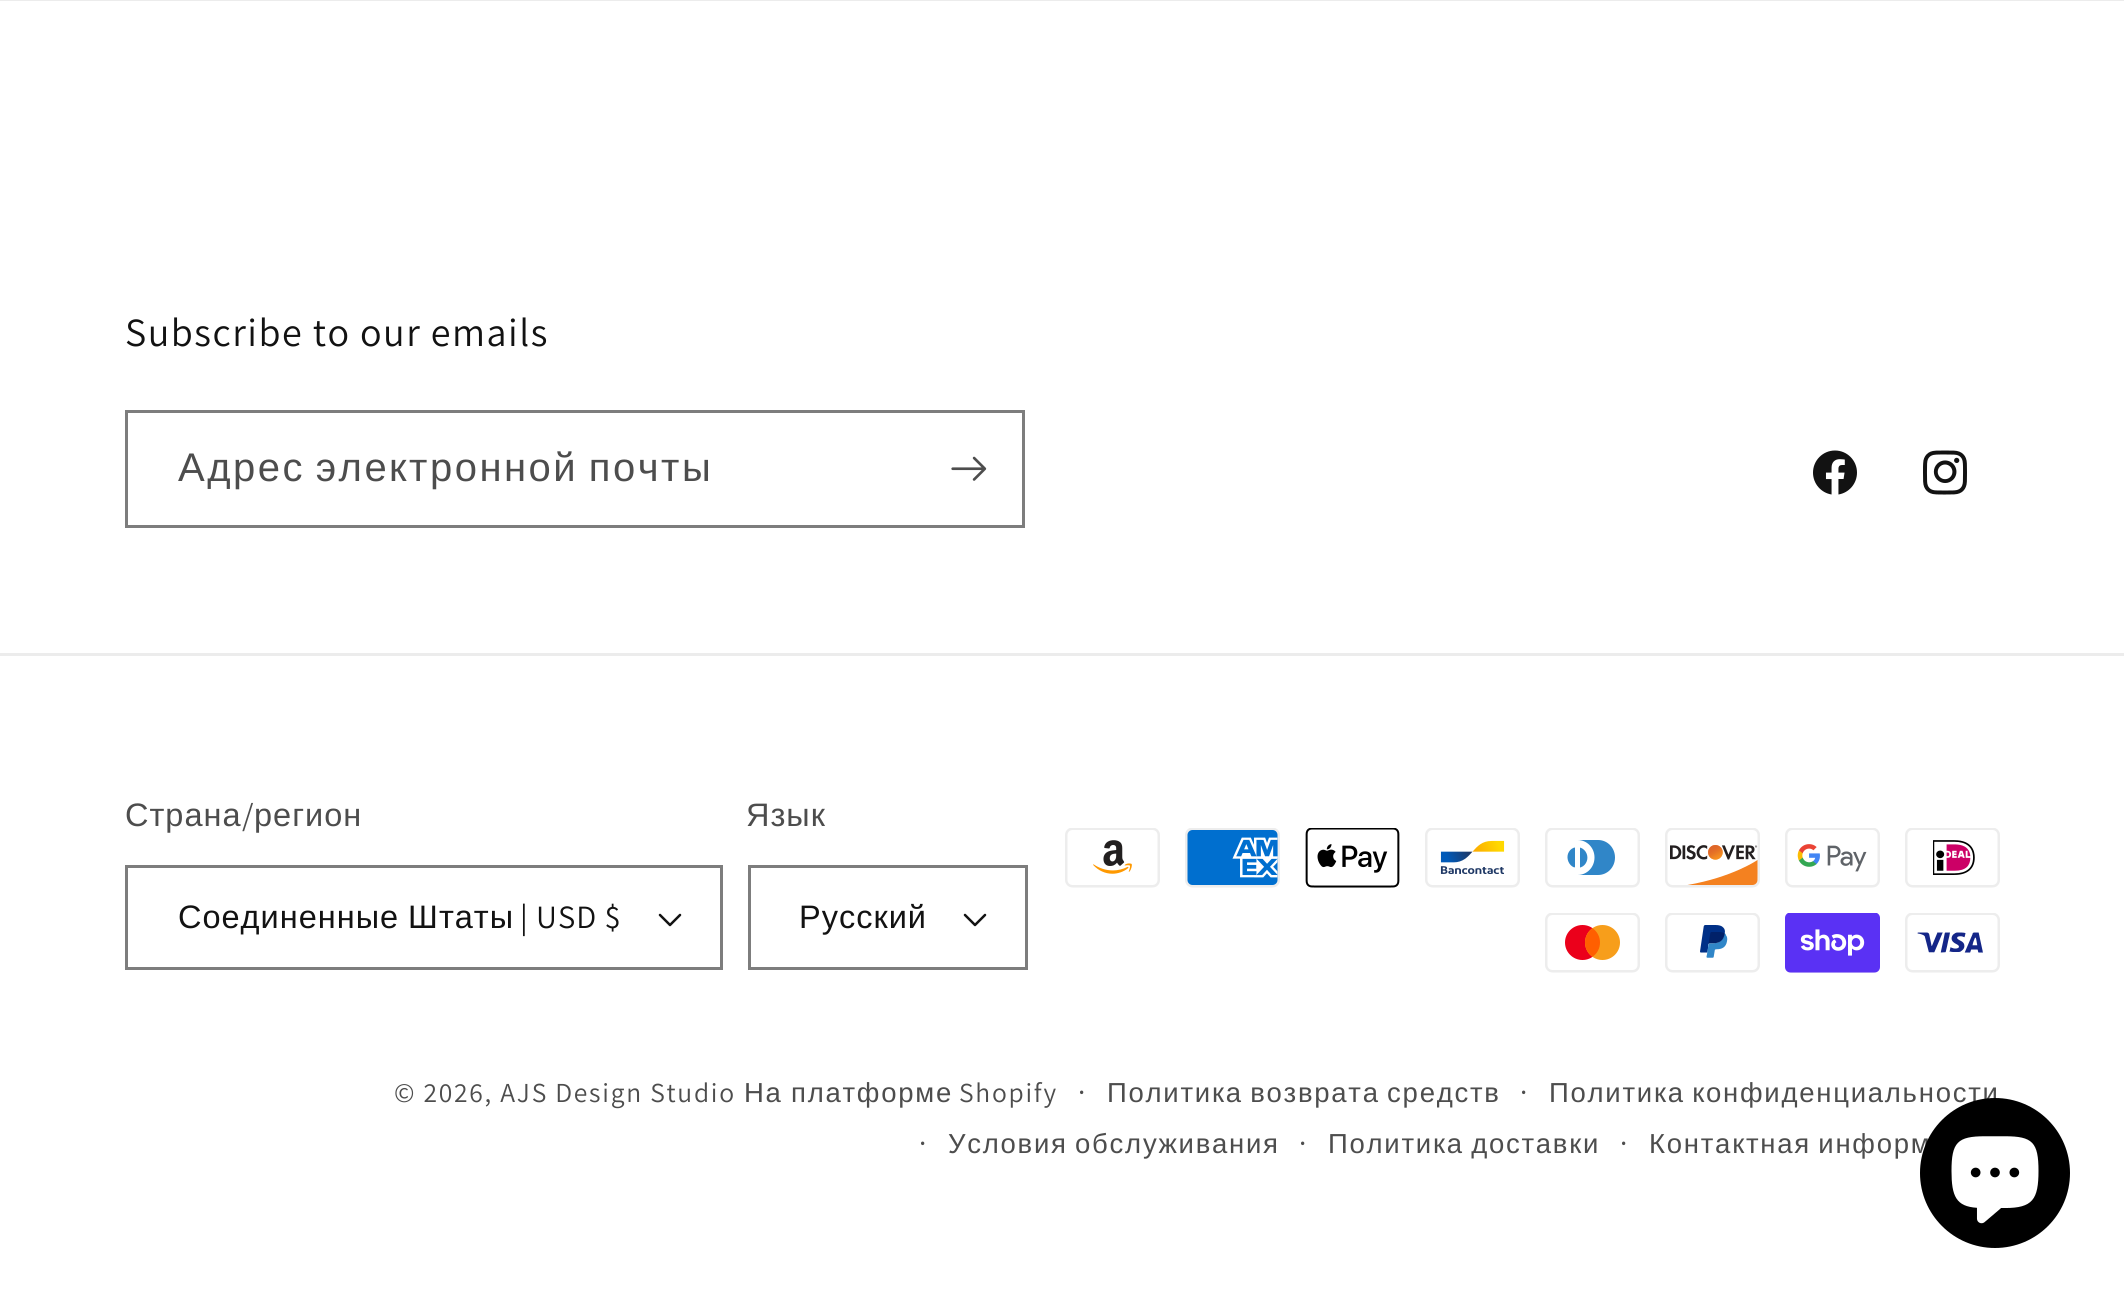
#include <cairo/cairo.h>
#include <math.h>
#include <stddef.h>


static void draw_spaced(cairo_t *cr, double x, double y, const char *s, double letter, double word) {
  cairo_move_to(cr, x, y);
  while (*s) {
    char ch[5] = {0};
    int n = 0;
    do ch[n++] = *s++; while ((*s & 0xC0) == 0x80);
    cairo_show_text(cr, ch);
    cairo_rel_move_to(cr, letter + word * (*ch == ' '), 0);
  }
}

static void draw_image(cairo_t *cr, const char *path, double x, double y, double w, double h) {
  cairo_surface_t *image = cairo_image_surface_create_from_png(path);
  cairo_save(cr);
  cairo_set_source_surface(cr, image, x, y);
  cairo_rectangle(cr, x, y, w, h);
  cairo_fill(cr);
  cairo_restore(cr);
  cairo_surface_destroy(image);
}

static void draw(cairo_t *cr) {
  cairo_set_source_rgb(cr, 1, 1, 1);
  cairo_paint(cr);
  cairo_set_source_rgb(cr, 236 / 255.0, 236 / 255.0, 236 / 255.0);
  cairo_rectangle(cr, 0, 0, 2124, 1);
  cairo_fill(cr);
  cairo_rectangle(cr, 126.5, 411.5, 897, 115);
  cairo_set_source_rgb(cr, 125 / 255.0, 125 / 255.0, 125 / 255.0);
  cairo_set_line_width(cr, 3);
  cairo_stroke(cr);
  draw_image(cr, "images/1.png", 951, 456, 36, 25);
  draw_image(cr, "images/2.png", 1813, 450, 44, 45);
  draw_image(cr, "images/3.png", 1923, 450, 44, 45);
  cairo_set_source_rgb(cr, 236 / 255.0, 236 / 255.0, 236 / 255.0);
  cairo_rectangle(cr, 0, 653, 2124, 3);
  cairo_fill(cr);
  draw_image(cr, "images/4.png", 658, 913, 24, 14);
  cairo_rectangle(cr, 126.5, 866.5, 595, 102);
  cairo_set_source_rgb(cr, 125 / 255.0, 125 / 255.0, 125 / 255.0);
  cairo_stroke(cr);
  draw_image(cr, "images/4.png", 963, 913, 24, 14);
  cairo_rectangle(cr, 749.5, 866.5, 277, 102);
  cairo_stroke(cr);
  draw_image(cr, "images/5.png", 1065, 828, 95, 60);
  draw_image(cr, "images/6.png", 1185, 828, 95, 60);
  draw_image(cr, "images/7.png", 1305, 828, 95, 60);
  draw_image(cr, "images/8.png", 1425, 828, 95, 60);
  draw_image(cr, "images/9.png", 1545, 828, 95, 60);
  draw_image(cr, "images/10.png", 1665, 828, 95, 60);
  draw_image(cr, "images/11.png", 1785, 828, 95, 60);
  draw_image(cr, "images/12.png", 1905, 828, 95, 60);
  draw_image(cr, "images/13.png", 1545, 913, 95, 60);
  draw_image(cr, "images/14.png", 1665, 913, 95, 60);
  draw_image(cr, "images/15.png", 1785, 913, 95, 60);
  draw_image(cr, "images/16.png", 1905, 913, 95, 60);
  cairo_select_font_face(cr, "Assistant", CAIRO_FONT_SLANT_NORMAL, CAIRO_FONT_WEIGHT_NORMAL);
  cairo_set_font_size(cr, 40);
  cairo_set_source_rgb(cr, 18 / 255.0, 18 / 255.0, 18 / 255.0);
  draw_spaced(cr, 125, 346, "Subscribe to our emails", 1.5, 0);
  cairo_select_font_face(cr, "Liberation Sans", CAIRO_FONT_SLANT_NORMAL, CAIRO_FONT_WEIGHT_NORMAL);
  cairo_set_source_rgb(cr, 77 / 255.0, 77 / 255.0, 77 / 255.0);
  draw_spaced(cr, 178, 481, "Адрес электронной почты", 2.5, -3);
  cairo_set_font_size(cr, 32.5);
  draw_spaced(cr, 125, 826, "Страна", 1, 0);
  cairo_select_font_face(cr, "Assistant", CAIRO_FONT_SLANT_NORMAL, CAIRO_FONT_WEIGHT_NORMAL);
  draw_spaced(cr, 242, 826, "/", 1, 0);
  cairo_select_font_face(cr, "Liberation Sans", CAIRO_FONT_SLANT_NORMAL, CAIRO_FONT_WEIGHT_NORMAL);
  draw_spaced(cr, 254, 826, "регион", 1, 0);
  cairo_set_source_rgb(cr, 18 / 255.0, 18 / 255.0, 18 / 255.0);
  draw_spaced(cr, 178, 928, "Соединенные Штаты", 1, -1);
  cairo_select_font_face(cr, "Assistant", CAIRO_FONT_SLANT_NORMAL, CAIRO_FONT_WEIGHT_NORMAL);
  draw_spaced(cr, 520, 928, "|", 1, 0);
  draw_spaced(cr, 536, 928, "USD $", 1, 0);
  cairo_select_font_face(cr, "Liberation Sans", CAIRO_FONT_SLANT_NORMAL, CAIRO_FONT_WEIGHT_NORMAL);
  cairo_set_source_rgb(cr, 77 / 255.0, 77 / 255.0, 77 / 255.0);
  draw_spaced(cr, 746, 826, "Язык", 1, 0);
  cairo_set_source_rgb(cr, 18 / 255.0, 18 / 255.0, 18 / 255.0);
  draw_spaced(cr, 799, 928, "Русский", 1, 0);
  cairo_select_font_face(cr, "Assistant", CAIRO_FONT_SLANT_NORMAL, CAIRO_FONT_WEIGHT_NORMAL);
  cairo_set_font_size(cr, 27.5);
  cairo_set_source_rgb(cr, 77 / 255.0, 77 / 255.0, 77 / 255.0);
  draw_spaced(cr, 394, 1102, "© 2026, AJS Design Studio", 1.75, 0);
  cairo_select_font_face(cr, "Liberation Sans", CAIRO_FONT_SLANT_NORMAL, CAIRO_FONT_WEIGHT_NORMAL);
  draw_spaced(cr, 744, 1102, "На платформе", 1.75, -1);
  cairo_select_font_face(cr, "Assistant", CAIRO_FONT_SLANT_NORMAL, CAIRO_FONT_WEIGHT_NORMAL);
  cairo_set_font_size(cr, 30);
  draw_spaced(cr, 1078, 1102, "·", 1.75, 0);
  cairo_select_font_face(cr, "Liberation Sans", CAIRO_FONT_SLANT_NORMAL, CAIRO_FONT_WEIGHT_NORMAL);
  cairo_set_font_size(cr, 27.5);
  draw_spaced(cr, 1107, 1102, "Политика возврата средств", 1.75, -2);
  cairo_select_font_face(cr, "Assistant", CAIRO_FONT_SLANT_NORMAL, CAIRO_FONT_WEIGHT_NORMAL);
  cairo_set_font_size(cr, 30);
  draw_spaced(cr, 1520, 1102, "·", 1.75, 0);
  cairo_select_font_face(cr, "Liberation Sans", CAIRO_FONT_SLANT_NORMAL, CAIRO_FONT_WEIGHT_NORMAL);
  cairo_set_font_size(cr, 27.5);
  draw_spaced(cr, 1549, 1102, "Политика конфиденциальности", 1.75, -2);
  cairo_select_font_face(cr, "Assistant", CAIRO_FONT_SLANT_NORMAL, CAIRO_FONT_WEIGHT_NORMAL);
  cairo_set_font_size(cr, 30);
  draw_spaced(cr, 919, 1153, "·", 1.75, 0);
  cairo_select_font_face(cr, "Liberation Sans", CAIRO_FONT_SLANT_NORMAL, CAIRO_FONT_WEIGHT_NORMAL);
  cairo_set_font_size(cr, 27.5);
  draw_spaced(cr, 948, 1153, "Условия обслуживания", 1.75, -2);
  cairo_select_font_face(cr, "Assistant", CAIRO_FONT_SLANT_NORMAL, CAIRO_FONT_WEIGHT_NORMAL);
  cairo_set_font_size(cr, 30);
  draw_spaced(cr, 1299, 1153, "·", 1.75, 0);
  cairo_select_font_face(cr, "Liberation Sans", CAIRO_FONT_SLANT_NORMAL, CAIRO_FONT_WEIGHT_NORMAL);
  cairo_set_font_size(cr, 27.5);
  draw_spaced(cr, 1328, 1153, "Политика доставки", 1.75, -2);
  cairo_select_font_face(cr, "Assistant", CAIRO_FONT_SLANT_NORMAL, CAIRO_FONT_WEIGHT_NORMAL);
  cairo_set_font_size(cr, 30);
  draw_spaced(cr, 1620, 1153, "·", 1.75, 0);
  cairo_select_font_face(cr, "Liberation Sans", CAIRO_FONT_SLANT_NORMAL, CAIRO_FONT_WEIGHT_NORMAL);
  cairo_set_font_size(cr, 27.5);
  draw_spaced(cr, 1649, 1153, "Контактная информ", 1.75, -2);
  cairo_select_font_face(cr, "Assistant", CAIRO_FONT_SLANT_NORMAL, CAIRO_FONT_WEIGHT_NORMAL);
  draw_spaced(cr, 959, 1102, "Shopify", 1.75, 0);
  cairo_set_source_rgb(cr, 0, 0, 0);
  cairo_new_path(cr);
  cairo_arc(cr, 1995, 1173, 75, 0, 2 * M_PI);
  cairo_fill(cr);
  draw_image(cr, "images/17.png", 1951, 1136, 88, 88);
}

int main(void) {
  cairo_surface_t *surface = cairo_image_surface_create(CAIRO_FORMAT_RGB24, 2124, 1299);
  cairo_t *cr = cairo_create(surface);
  cairo_font_options_t *options = cairo_font_options_create();
  cairo_font_options_set_hint_metrics(options, CAIRO_HINT_METRICS_OFF);
  cairo_font_options_set_hint_style(options, CAIRO_HINT_STYLE_NONE);
  cairo_set_font_options(cr, options);
  cairo_set_miter_limit(cr, 4);
  draw(cr);
  cairo_surface_write_to_png(surface, "out.png");
  cairo_font_options_destroy(options);
  cairo_destroy(cr);
  cairo_surface_destroy(surface);
  return 0;
}
